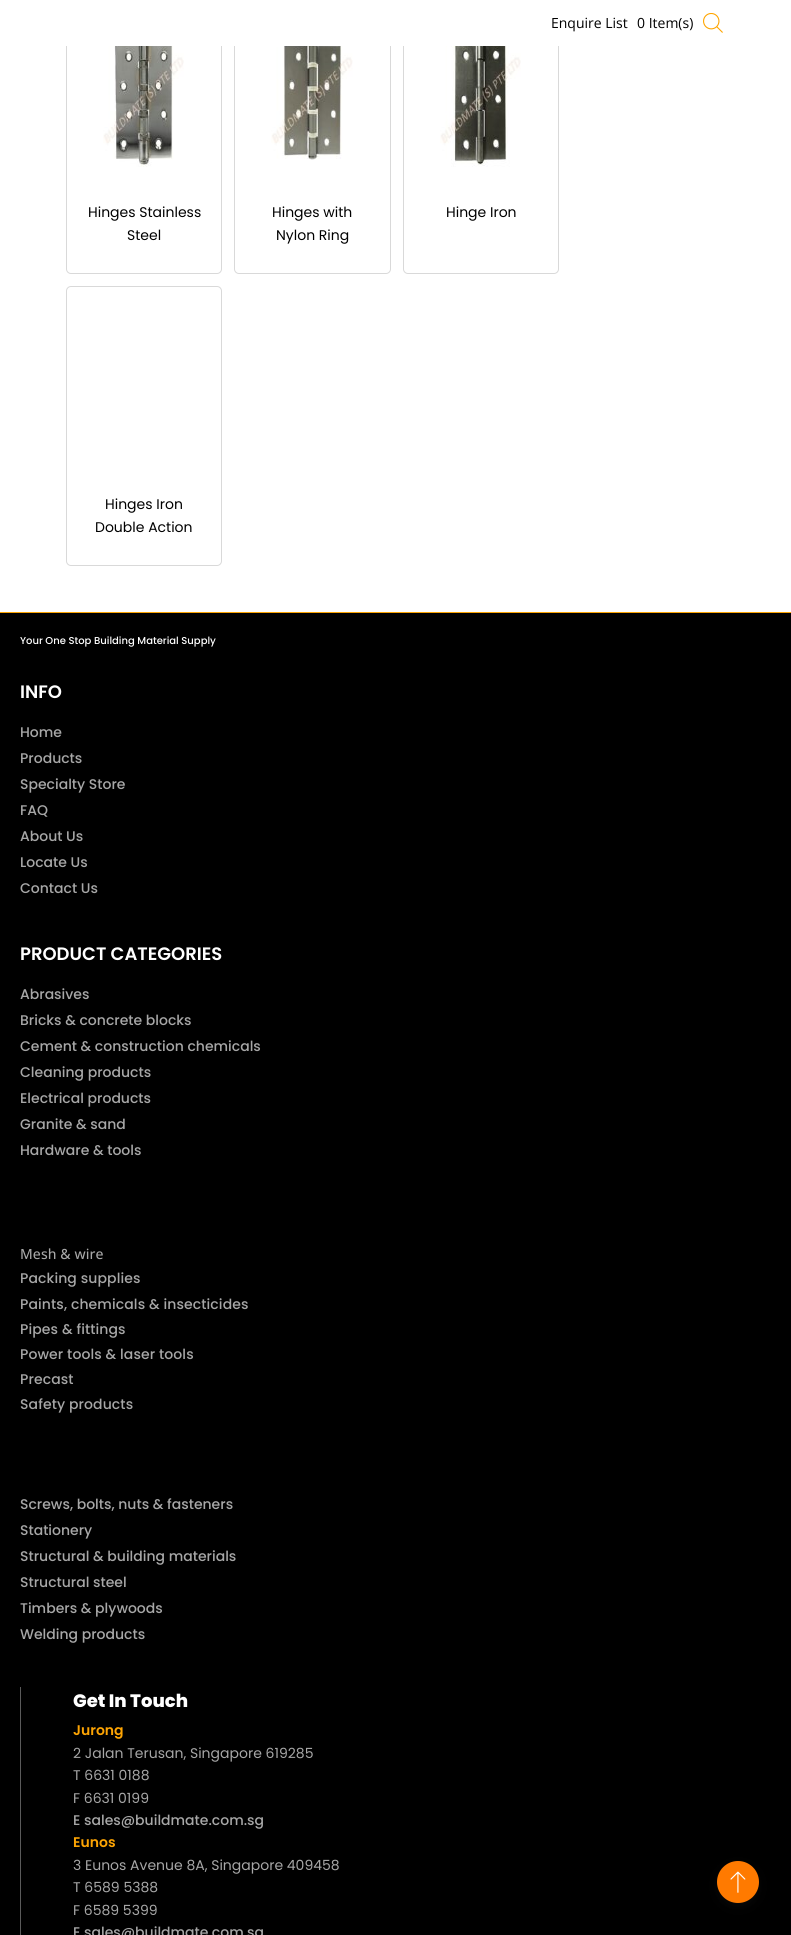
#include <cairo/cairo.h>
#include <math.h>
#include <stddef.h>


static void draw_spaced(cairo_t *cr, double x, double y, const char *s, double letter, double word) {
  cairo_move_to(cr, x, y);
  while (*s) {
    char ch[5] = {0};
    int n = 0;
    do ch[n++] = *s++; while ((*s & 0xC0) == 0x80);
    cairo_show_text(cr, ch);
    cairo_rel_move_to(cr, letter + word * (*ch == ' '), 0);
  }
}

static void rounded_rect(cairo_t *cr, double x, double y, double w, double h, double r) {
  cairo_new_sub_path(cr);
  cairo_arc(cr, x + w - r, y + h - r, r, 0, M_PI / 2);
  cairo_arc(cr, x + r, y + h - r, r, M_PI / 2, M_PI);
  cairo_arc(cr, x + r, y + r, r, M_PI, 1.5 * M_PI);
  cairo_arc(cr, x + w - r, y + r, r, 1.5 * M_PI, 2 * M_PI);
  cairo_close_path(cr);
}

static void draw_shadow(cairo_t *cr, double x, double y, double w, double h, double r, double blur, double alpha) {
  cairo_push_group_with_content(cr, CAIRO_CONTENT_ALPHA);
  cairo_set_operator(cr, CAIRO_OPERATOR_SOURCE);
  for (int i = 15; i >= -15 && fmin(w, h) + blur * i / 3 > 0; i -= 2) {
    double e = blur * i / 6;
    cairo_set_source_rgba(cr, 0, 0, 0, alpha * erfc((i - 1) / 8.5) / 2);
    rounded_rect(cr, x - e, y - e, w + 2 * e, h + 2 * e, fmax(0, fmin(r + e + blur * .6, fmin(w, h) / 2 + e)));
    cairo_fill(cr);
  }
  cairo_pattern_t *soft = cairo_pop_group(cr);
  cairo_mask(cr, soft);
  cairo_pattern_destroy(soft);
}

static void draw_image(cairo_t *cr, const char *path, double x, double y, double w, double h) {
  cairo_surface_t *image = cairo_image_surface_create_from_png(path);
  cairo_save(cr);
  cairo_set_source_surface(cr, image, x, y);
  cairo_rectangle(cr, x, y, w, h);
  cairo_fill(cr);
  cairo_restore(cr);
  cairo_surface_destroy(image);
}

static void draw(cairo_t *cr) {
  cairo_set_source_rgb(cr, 1, 1, 1);
  cairo_paint(cr);
  rounded_rect(cr, 66.5, -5.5, 155, 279, 4.5);
  cairo_set_source_rgb(cr, 217 / 255.0, 217 / 255.0, 217 / 255.0);
  cairo_set_line_width(cr, 1);
  cairo_stroke(cr);
  rounded_rect(cr, 234.5, -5.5, 156, 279, 4.5);
  cairo_stroke(cr);
  rounded_rect(cr, 403.5, -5.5, 155, 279, 4.5);
  cairo_stroke(cr);
  cairo_set_source_rgb(cr, 1, 1, 1);
  cairo_rectangle(cr, 66, 0, 493, 46);
  cairo_fill(cr);
  draw_image(cr, "images/1.png", 703, 13, 20, 20);
  draw_image(cr, "images/2.png", 103, 46, 81, 121);
  draw_image(cr, "images/3.png", 271, 46, 82, 114);
  draw_image(cr, "images/4.png", 440, 46, 81, 121);
  rounded_rect(cr, 66.5, 286.5, 155, 279, 4.5);
  cairo_set_source_rgb(cr, 217 / 255.0, 217 / 255.0, 217 / 255.0);
  cairo_stroke(cr);
  cairo_set_source_rgb(cr, 0, 0, 0);
  cairo_rectangle(cr, 0, 613, 791, 1322);
  cairo_fill(cr);
  cairo_set_source_rgb(cr, 251 / 255.0, 164 / 255.0, 2 / 255.0);
  cairo_rectangle(cr, 0, 612, 791, 1);
  cairo_fill(cr);
  cairo_set_source_rgb(cr, 90 / 255.0, 90 / 255.0, 90 / 255.0);
  cairo_rectangle(cr, 20, 1687, 1, 248);
  cairo_fill(cr);
  cairo_set_source_rgb(cr, 30 / 255.0, 30 / 255.0, 30 / 255.0);
  draw_shadow(cr, 727, 1875, 22, 22, 11, 8.5, 1);
  cairo_set_source_rgb(cr, 1, 122 / 255.0, 0);
  cairo_arc(cr, 738, 1882, 21, 0, 2 * M_PI);
  cairo_fill(cr);
  draw_image(cr, "images/5.png", 730, 1871, 16, 22);
  cairo_select_font_face(cr, "Open Sans", CAIRO_FONT_SLANT_NORMAL, CAIRO_FONT_WEIGHT_NORMAL);
  cairo_set_font_size(cr, 14);
  cairo_set_source_rgb(cr, 0, 0, 0);
  cairo_move_to(cr, 551, 28);
  cairo_show_text(cr, "Enquire List");
  cairo_move_to(cr, 637, 28);
  cairo_show_text(cr, "0 Item(s)");
  cairo_select_font_face(cr, "Poppins", CAIRO_FONT_SLANT_NORMAL, CAIRO_FONT_WEIGHT_NORMAL);
  cairo_move_to(cr, 88, 217);
  cairo_show_text(cr, "Hinges Stainless");
  cairo_move_to(cr, 127, 240);
  cairo_show_text(cr, "Steel");
  cairo_move_to(cr, 272, 217);
  cairo_show_text(cr, "Hinges with");
  cairo_move_to(cr, 276, 240);
  cairo_show_text(cr, "Nylon Ring");
  cairo_move_to(cr, 446, 217);
  cairo_show_text(cr, "Hinge Iron");
  cairo_move_to(cr, 105, 509);
  cairo_show_text(cr, "Hinges Iron");
  cairo_move_to(cr, 95, 532);
  cairo_show_text(cr, "Double Action");
  cairo_select_font_face(cr, "Poppins Medium", CAIRO_FONT_SLANT_NORMAL, CAIRO_FONT_WEIGHT_NORMAL);
  cairo_set_font_size(cr, 10);
  cairo_set_source_rgb(cr, 1, 1, 1);
  cairo_move_to(cr, 20, 644);
  cairo_show_text(cr, "Your One Stop Building Material Supply");
  cairo_select_font_face(cr, "Poppins SemiBold", CAIRO_FONT_SLANT_NORMAL, CAIRO_FONT_WEIGHT_NORMAL);
  cairo_set_font_size(cr, 18);
  cairo_move_to(cr, 20, 698);
  cairo_show_text(cr, "INFO");
  cairo_select_font_face(cr, "Poppins Medium", CAIRO_FONT_SLANT_NORMAL, CAIRO_FONT_WEIGHT_NORMAL);
  cairo_set_font_size(cr, 14);
  cairo_set_source_rgb(cr, 167 / 255.0, 167 / 255.0, 167 / 255.0);
  cairo_move_to(cr, 20, 737);
  cairo_show_text(cr, "Home");
  cairo_move_to(cr, 20, 763);
  cairo_show_text(cr, "Products");
  cairo_move_to(cr, 20, 789);
  cairo_show_text(cr, "Specialty Store");
  cairo_move_to(cr, 20, 815);
  cairo_show_text(cr, "FAQ");
  cairo_move_to(cr, 20, 841);
  cairo_show_text(cr, "About Us");
  cairo_move_to(cr, 20, 867);
  cairo_show_text(cr, "Locate Us");
  cairo_move_to(cr, 20, 893);
  cairo_show_text(cr, "Contact Us");
  cairo_select_font_face(cr, "Poppins SemiBold", CAIRO_FONT_SLANT_NORMAL, CAIRO_FONT_WEIGHT_NORMAL);
  cairo_set_font_size(cr, 18);
  cairo_set_source_rgb(cr, 1, 1, 1);
  cairo_move_to(cr, 20, 960);
  cairo_show_text(cr, "PRODUCT CATEGORIES");
  cairo_select_font_face(cr, "Poppins Medium", CAIRO_FONT_SLANT_NORMAL, CAIRO_FONT_WEIGHT_NORMAL);
  cairo_set_font_size(cr, 14);
  cairo_set_source_rgb(cr, 167 / 255.0, 167 / 255.0, 167 / 255.0);
  cairo_move_to(cr, 20, 999);
  cairo_show_text(cr, "Abrasives");
  cairo_move_to(cr, 20, 1025);
  cairo_show_text(cr, "Bricks & concrete blocks");
  cairo_move_to(cr, 20, 1051);
  cairo_show_text(cr, "Cement & construction chemicals");
  cairo_move_to(cr, 20, 1077);
  cairo_show_text(cr, "Cleaning products");
  cairo_move_to(cr, 20, 1103);
  cairo_show_text(cr, "Electrical products");
  cairo_move_to(cr, 20, 1129);
  cairo_show_text(cr, "Granite & sand");
  cairo_move_to(cr, 20, 1155);
  cairo_show_text(cr, "Hardware & tools");
  cairo_select_font_face(cr, "Open Sans Medium", CAIRO_FONT_SLANT_NORMAL, CAIRO_FONT_WEIGHT_NORMAL);
  draw_spaced(cr, 20, 1259, "Mesh & wire", 0.1, 0);
  cairo_select_font_face(cr, "Poppins Medium", CAIRO_FONT_SLANT_NORMAL, CAIRO_FONT_WEIGHT_NORMAL);
  draw_spaced(cr, 20, 1283, "Packing supplies", 0.1, 0);
  draw_spaced(cr, 20, 1309, "Paints, chemicals & insecticides", 0.1, 0);
  draw_spaced(cr, 20, 1334, "Pipes & fittings", 0.1, 0);
  draw_spaced(cr, 20, 1359, "Power tools & laser tools", 0.1, 0);
  draw_spaced(cr, 20, 1384, "Precast", 0.1, 0);
  draw_spaced(cr, 20, 1409, "Safety products", 0.1, 0);
  cairo_move_to(cr, 20, 1509);
  cairo_show_text(cr, "Screws, bolts, nuts & fasteners");
  cairo_move_to(cr, 20, 1535);
  cairo_show_text(cr, "Stationery");
  cairo_move_to(cr, 20, 1561);
  cairo_show_text(cr, "Structural & building materials");
  cairo_move_to(cr, 20, 1587);
  cairo_show_text(cr, "Structural steel");
  cairo_move_to(cr, 20, 1613);
  cairo_show_text(cr, "Timbers & plywoods");
  cairo_move_to(cr, 20, 1639);
  cairo_show_text(cr, "Welding products");
  cairo_select_font_face(cr, "Poppins ExtraBold", CAIRO_FONT_SLANT_NORMAL, CAIRO_FONT_WEIGHT_NORMAL);
  cairo_set_font_size(cr, 18);
  cairo_set_source_rgb(cr, 1, 1, 1);
  cairo_move_to(cr, 73, 1707);
  cairo_show_text(cr, "Get In Touch");
  cairo_select_font_face(cr, "Poppins SemiBold", CAIRO_FONT_SLANT_NORMAL, CAIRO_FONT_WEIGHT_NORMAL);
  cairo_set_font_size(cr, 14);
  cairo_set_source_rgb(cr, 253 / 255.0, 164 / 255.0, 3 / 255.0);
  cairo_move_to(cr, 73, 1735);
  cairo_show_text(cr, "Jurong");
  cairo_select_font_face(cr, "Poppins", CAIRO_FONT_SLANT_NORMAL, CAIRO_FONT_WEIGHT_NORMAL);
  cairo_set_source_rgb(cr, 167 / 255.0, 167 / 255.0, 167 / 255.0);
  cairo_move_to(cr, 73, 1758);
  cairo_show_text(cr, "2 Jalan Terusan, Singapore 619285");
  cairo_move_to(cr, 73, 1780);
  cairo_show_text(cr, "T 6631 0188");
  cairo_move_to(cr, 73, 1803);
  cairo_show_text(cr, "F 6631 0199");
  cairo_select_font_face(cr, "Poppins Medium", CAIRO_FONT_SLANT_NORMAL, CAIRO_FONT_WEIGHT_NORMAL);
  cairo_move_to(cr, 73, 1825);
  cairo_show_text(cr, "E sales@buildmate.com.sg");
  cairo_select_font_face(cr, "Poppins SemiBold", CAIRO_FONT_SLANT_NORMAL, CAIRO_FONT_WEIGHT_NORMAL);
  cairo_set_source_rgb(cr, 253 / 255.0, 164 / 255.0, 3 / 255.0);
  cairo_move_to(cr, 73, 1847);
  cairo_show_text(cr, "Eunos");
  cairo_select_font_face(cr, "Poppins", CAIRO_FONT_SLANT_NORMAL, CAIRO_FONT_WEIGHT_NORMAL);
  cairo_set_source_rgb(cr, 167 / 255.0, 167 / 255.0, 167 / 255.0);
  cairo_move_to(cr, 73, 1870);
  cairo_show_text(cr, "3 Eunos Avenue 8A, Singapore 409458");
  cairo_move_to(cr, 73, 1892);
  cairo_show_text(cr, "T 6589 5388");
  cairo_move_to(cr, 73, 1915);
  cairo_show_text(cr, "F 6589 5399");
  cairo_select_font_face(cr, "Poppins Medium", CAIRO_FONT_SLANT_NORMAL, CAIRO_FONT_WEIGHT_NORMAL);
  cairo_move_to(cr, 73, 1937);
  cairo_show_text(cr, "E sales@buildmate.com.sg");
}

int main(void) {
  cairo_surface_t *surface = cairo_image_surface_create(CAIRO_FORMAT_RGB24, 791, 1935);
  cairo_t *cr = cairo_create(surface);
  cairo_font_options_t *options = cairo_font_options_create();
  cairo_font_options_set_hint_metrics(options, CAIRO_HINT_METRICS_OFF);
  cairo_font_options_set_hint_style(options, CAIRO_HINT_STYLE_NONE);
  cairo_set_font_options(cr, options);
  cairo_set_miter_limit(cr, 4);
  draw(cr);
  cairo_surface_write_to_png(surface, "out.png");
  cairo_font_options_destroy(options);
  cairo_destroy(cr);
  cairo_surface_destroy(surface);
  return 0;
}
